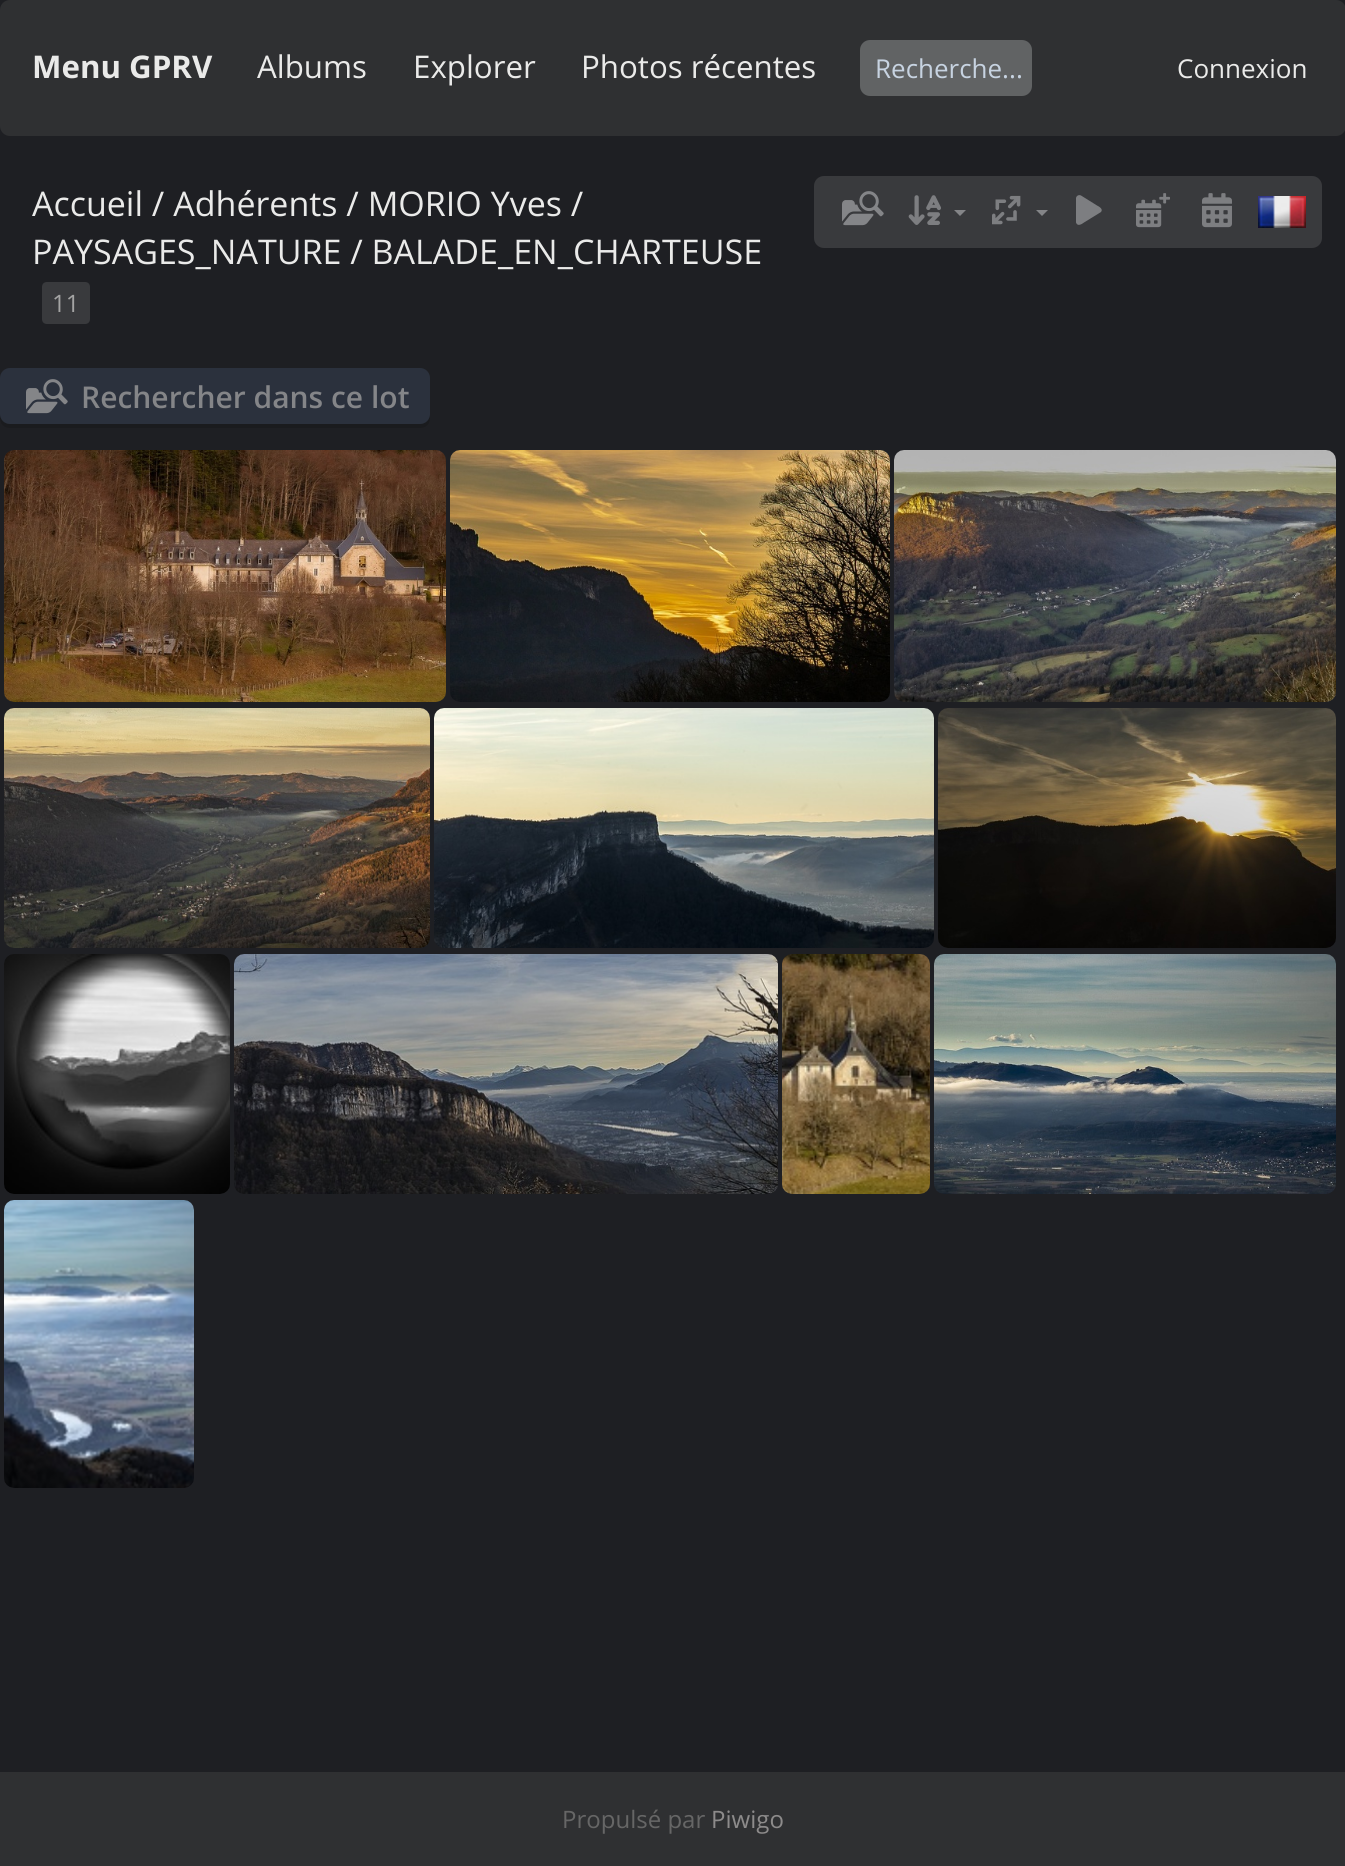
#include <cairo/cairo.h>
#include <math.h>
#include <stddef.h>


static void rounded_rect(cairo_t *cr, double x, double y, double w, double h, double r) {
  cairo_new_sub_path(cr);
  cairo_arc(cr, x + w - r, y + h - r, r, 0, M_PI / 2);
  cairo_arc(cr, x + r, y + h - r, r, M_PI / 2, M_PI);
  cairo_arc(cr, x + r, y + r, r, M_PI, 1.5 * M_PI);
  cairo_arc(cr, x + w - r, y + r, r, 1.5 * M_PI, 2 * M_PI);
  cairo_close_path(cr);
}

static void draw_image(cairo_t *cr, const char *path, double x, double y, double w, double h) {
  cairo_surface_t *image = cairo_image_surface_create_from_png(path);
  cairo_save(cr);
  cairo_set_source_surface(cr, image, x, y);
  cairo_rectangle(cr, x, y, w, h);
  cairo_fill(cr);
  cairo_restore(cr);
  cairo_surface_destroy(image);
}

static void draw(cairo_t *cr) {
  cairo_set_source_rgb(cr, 30 / 255.0, 31 / 255.0, 35 / 255.0);
  cairo_paint(cr);
  cairo_set_source_rgb(cr, 47 / 255.0, 48 / 255.0, 50 / 255.0);
  rounded_rect(cr, 0, 0, 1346, 136, 10);
  cairo_fill(cr);
  cairo_set_source_rgb(cr, 97 / 255.0, 99 / 255.0, 100 / 255.0);
  rounded_rect(cr, 860, 40, 172, 56, 10);
  cairo_fill(cr);
  cairo_set_source_rgb(cr, 57 / 255.0, 58 / 255.0, 61 / 255.0);
  cairo_new_path(cr);
  cairo_move_to(cr, 47, 282);
  cairo_line_to(cr, 52, 282);
  cairo_line_to(cr, 52, 324);
  cairo_line_to(cr, 47, 324);
  cairo_curve_to(cr, 44, 324, 42, 322, 42, 319);
  cairo_line_to(cr, 42, 287);
  cairo_curve_to(cr, 42, 284, 44, 282, 47, 282);
  cairo_close_path(cr);
  cairo_fill(cr);
  cairo_rectangle(cr, 52, 282, 28, 42);
  cairo_fill(cr);
  cairo_new_path(cr);
  cairo_move_to(cr, 80, 282);
  cairo_line_to(cr, 85, 282);
  cairo_curve_to(cr, 88, 282, 90, 284, 90, 287);
  cairo_line_to(cr, 90, 319);
  cairo_curve_to(cr, 90, 322, 88, 324, 85, 324);
  cairo_line_to(cr, 80, 324);
  cairo_close_path(cr);
  cairo_fill(cr);
  rounded_rect(cr, 814, 176, 508, 72, 10);
  cairo_fill(cr);
  draw_image(cr, "images/1.png", 842, 191, 42, 35);
  draw_image(cr, "images/2.png", 908, 195, 33, 30);
  cairo_set_source_rgb(cr, 132 / 255.0, 133 / 255.0, 136 / 255.0);
  cairo_new_path(cr);
  cairo_move_to(cr, 954, 210);
  cairo_line_to(cr, 966, 210);
  cairo_line_to(cr, 960, 216);
  cairo_close_path(cr);
  cairo_fill(cr);
  draw_image(cr, "images/3.png", 992, 195, 29, 30);
  cairo_new_path(cr);
  cairo_move_to(cr, 1036, 210);
  cairo_line_to(cr, 1048, 210);
  cairo_line_to(cr, 1042, 216);
  cairo_close_path(cr);
  cairo_fill(cr);
  cairo_set_source_rgb(cr, 125 / 255.0, 126 / 255.0, 129 / 255.0);
  cairo_new_path(cr);
  cairo_move_to(cr, 1081, 195.5);
  cairo_curve_to(cr, 1079, 194.5, 1076.5, 195.5, 1076, 198);
  cairo_line_to(cr, 1076, 222.5);
  cairo_curve_to(cr, 1077.5, 227, 1082, 224, 1084, 222.5);
  cairo_line_to(cr, 1101, 212);
  cairo_curve_to(cr, 1103.5, 209, 1099, 206.5, 1097, 205.5);
  cairo_close_path(cr);
  cairo_fill(cr);
  draw_image(cr, "images/4.png", 1136, 193, 34, 35);
  draw_image(cr, "images/5.png", 1202, 193, 30, 35);
  draw_image(cr, "images/6.png", 1258, 196, 48, 32);
  cairo_set_source_rgb(cr, 26 / 255.0, 27 / 255.0, 30 / 255.0);
  cairo_new_path(cr);
  cairo_move_to(cr, 0, 414);
  cairo_line_to(cr, 0, 418);
  cairo_curve_to(cr, 0, 424, 4, 428, 10, 428);
  cairo_line_to(cr, 420, 428);
  cairo_curve_to(cr, 426, 428, 430, 424, 430, 418);
  cairo_line_to(cr, 430, 414);
  cairo_curve_to(cr, 430, 420, 426, 424, 420, 424);
  cairo_line_to(cr, 10, 424);
  cairo_curve_to(cr, 4, 424, 0, 420, 0, 414);
  cairo_close_path(cr);
  cairo_fill(cr);
  cairo_set_source_rgb(cr, 43 / 255.0, 49 / 255.0, 61 / 255.0);
  rounded_rect(cr, 0, 368, 430, 56, 10);
  cairo_fill(cr);
  draw_image(cr, "images/7.png", 26, 379, 42, 35);
  draw_image(cr, "images/8.png", 4, 450, 442, 252);
  draw_image(cr, "images/9.png", 450, 450, 440, 252);
  draw_image(cr, "images/10.png", 894, 450, 442, 252);
  draw_image(cr, "images/11.png", 4, 708, 426, 240);
  draw_image(cr, "images/12.png", 434, 708, 500, 240);
  draw_image(cr, "images/13.png", 938, 708, 398, 240);
  draw_image(cr, "images/14.png", 4, 954, 226, 240);
  draw_image(cr, "images/15.png", 234, 954, 544, 240);
  draw_image(cr, "images/16.png", 782, 954, 148, 240);
  draw_image(cr, "images/17.png", 934, 954, 402, 240);
  draw_image(cr, "images/18.png", 4, 1200, 190, 288);
  cairo_set_source_rgb(cr, 47 / 255.0, 48 / 255.0, 50 / 255.0);
  cairo_rectangle(cr, 0, 1772, 1345, 94);
  cairo_fill(cr);
  cairo_select_font_face(cr, "Open Sans", CAIRO_FONT_SLANT_NORMAL, CAIRO_FONT_WEIGHT_BOLD);
  cairo_set_font_size(cr, 31.25);
  cairo_set_source_rgb(cr, 234 / 255.0, 234 / 255.0, 233 / 255.0);
  cairo_move_to(cr, 32, 78);
  cairo_show_text(cr, "Menu GPRV");
  cairo_select_font_face(cr, "Open Sans", CAIRO_FONT_SLANT_NORMAL, CAIRO_FONT_WEIGHT_NORMAL);
  cairo_move_to(cr, 257, 78);
  cairo_show_text(cr, "Albums");
  cairo_move_to(cr, 413, 78);
  cairo_show_text(cr, "Explorer");
  cairo_move_to(cr, 581, 78);
  cairo_show_text(cr, "Photos récentes");
  cairo_set_font_size(cr, 26);
  cairo_set_source_rgb(cr, 199 / 255.0, 211 / 255.0, 225 / 255.0);
  cairo_move_to(cr, 875, 78);
  cairo_show_text(cr, "Recherche...");
  cairo_set_source_rgb(cr, 234 / 255.0, 234 / 255.0, 233 / 255.0);
  cairo_move_to(cr, 1177, 78);
  cairo_show_text(cr, "Connexion");
  cairo_set_font_size(cr, 34);
  cairo_move_to(cr, 32, 216);
  cairo_show_text(cr, "Accueil / Adhérents / MORIO Yves /");
  cairo_move_to(cr, 32, 264);
  cairo_show_text(cr, "PAYSAGES_NATURE / BALADE_EN_CHARTEUSE");
  cairo_set_font_size(cr, 24);
  cairo_set_source_rgb(cr, 164 / 255.0, 164 / 255.0, 164 / 255.0);
  cairo_move_to(cr, 52, 312);
  cairo_show_text(cr, "11");
  cairo_select_font_face(cr, "Open Sans SemiBold", CAIRO_FONT_SLANT_NORMAL, CAIRO_FONT_WEIGHT_NORMAL);
  cairo_set_font_size(cr, 30);
  cairo_set_source_rgb(cr, 132 / 255.0, 133 / 255.0, 136 / 255.0);
  cairo_move_to(cr, 81, 408);
  cairo_show_text(cr, "Rechercher dans ce lot");
  cairo_select_font_face(cr, "Open Sans", CAIRO_FONT_SLANT_NORMAL, CAIRO_FONT_WEIGHT_NORMAL);
  cairo_set_font_size(cr, 24);
  cairo_set_source_rgb(cr, 102 / 255.0, 102 / 255.0, 102 / 255.0);
  cairo_move_to(cr, 562, 1828);
  cairo_show_text(cr, "Propulsé par");
  cairo_set_source_rgb(cr, 141 / 255.0, 139 / 255.0, 139 / 255.0);
  cairo_move_to(cr, 711, 1828);
  cairo_show_text(cr, "Piwigo");
}

int main(void) {
  cairo_surface_t *surface = cairo_image_surface_create(CAIRO_FORMAT_RGB24, 1345, 1866);
  cairo_t *cr = cairo_create(surface);
  cairo_font_options_t *options = cairo_font_options_create();
  cairo_font_options_set_hint_metrics(options, CAIRO_HINT_METRICS_OFF);
  cairo_font_options_set_hint_style(options, CAIRO_HINT_STYLE_NONE);
  cairo_set_font_options(cr, options);
  cairo_set_miter_limit(cr, 4);
  draw(cr);
  cairo_surface_write_to_png(surface, "out.png");
  cairo_font_options_destroy(options);
  cairo_destroy(cr);
  cairo_surface_destroy(surface);
  return 0;
}
